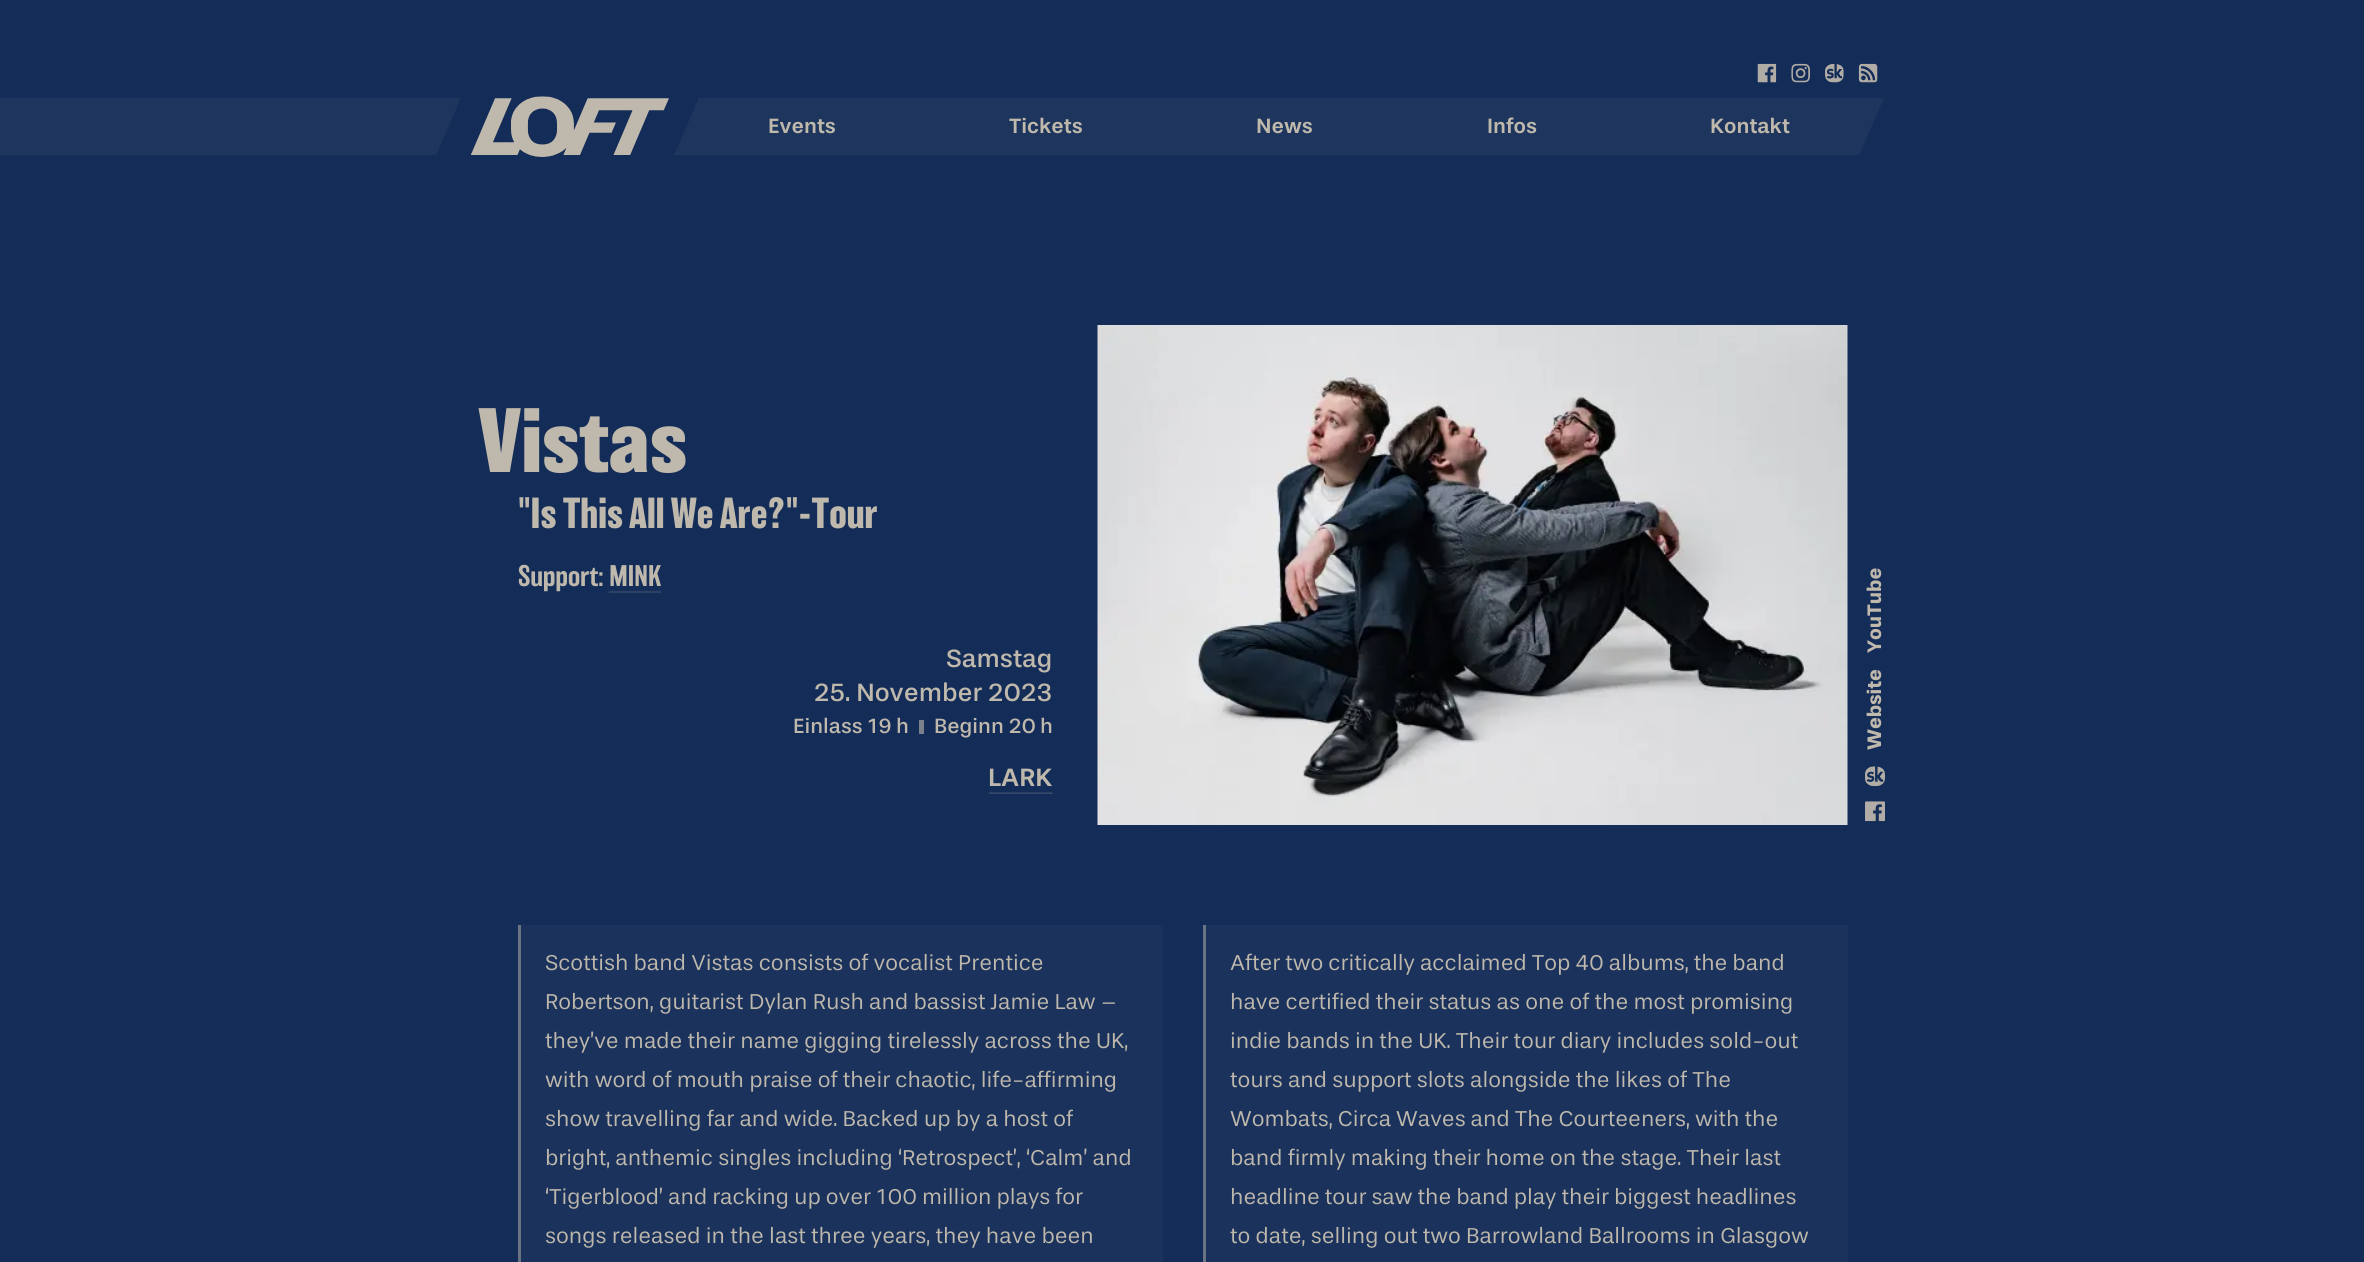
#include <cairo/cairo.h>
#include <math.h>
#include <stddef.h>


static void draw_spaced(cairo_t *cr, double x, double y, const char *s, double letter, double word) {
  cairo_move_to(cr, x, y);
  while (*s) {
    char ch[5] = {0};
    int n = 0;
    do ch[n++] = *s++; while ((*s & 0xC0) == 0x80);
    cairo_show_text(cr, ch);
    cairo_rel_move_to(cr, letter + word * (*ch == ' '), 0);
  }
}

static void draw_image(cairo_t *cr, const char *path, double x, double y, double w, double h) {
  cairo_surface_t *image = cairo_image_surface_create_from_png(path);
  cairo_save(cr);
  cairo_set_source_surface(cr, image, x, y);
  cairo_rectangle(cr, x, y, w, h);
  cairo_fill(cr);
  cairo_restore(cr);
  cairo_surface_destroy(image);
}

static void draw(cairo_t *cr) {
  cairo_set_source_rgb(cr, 20 / 255.0, 45 / 255.0, 88 / 255.0);
  cairo_paint(cr);
  cairo_set_source_rgb(cr, 30 / 255.0, 53 / 255.0, 93 / 255.0);
  cairo_new_path(cr);
  cairo_move_to(cr, -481, 98);
  cairo_line_to(cr, 1884, 98);
  cairo_line_to(cr, 1859, 155);
  cairo_line_to(cr, -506, 155);
  cairo_close_path(cr);
  cairo_fill(cr);
  cairo_set_source_rgb(cr, 20 / 255.0, 45 / 255.0, 88 / 255.0);
  cairo_new_path(cr);
  cairo_move_to(cr, 483, 47);
  cairo_line_to(cr, 721, 47);
  cairo_line_to(cr, 652, 206);
  cairo_line_to(cr, 414, 206);
  cairo_close_path(cr);
  cairo_fill(cr);
  draw_image(cr, "images/1.png", 470, 96, 199, 61);
  draw_image(cr, "images/2.png", 1757, 63, 20, 20);
  draw_image(cr, "images/3.png", 1791, 63, 19, 20);
  draw_image(cr, "images/4.png", 1825, 63, 19, 20);
  draw_image(cr, "images/5.png", 1858, 63, 20, 20);
  cairo_set_source_rgb(cr, 123 / 255.0, 129 / 255.0, 139 / 255.0);
  cairo_rectangle(cr, 919, 720, 5, 14);
  cairo_fill(cr);
  draw_image(cr, "images/7.png", 988, 792, 65, 2);
  draw_image(cr, "images/8.png", 1097, 325, 751, 500);
  draw_image(cr, "images/9.png", 1865, 766, 20, 21);
  draw_image(cr, "images/10.png", 1865, 801, 20, 21);
  cairo_set_source_rgb(cr, 27 / 255.0, 51 / 255.0, 92 / 255.0);
  cairo_rectangle(cr, 521, 925, 642, 337);
  cairo_fill(cr);
  cairo_set_source_rgb(cr, 106 / 255.0, 115 / 255.0, 130 / 255.0);
  cairo_rectangle(cr, 518, 925, 3, 337);
  cairo_fill(cr);
  cairo_set_source_rgb(cr, 27 / 255.0, 51 / 255.0, 92 / 255.0);
  cairo_rectangle(cr, 1206, 925, 642, 337);
  cairo_fill(cr);
  cairo_set_source_rgb(cr, 106 / 255.0, 115 / 255.0, 130 / 255.0);
  cairo_rectangle(cr, 1203, 925, 3, 337);
  cairo_fill(cr);
  cairo_select_font_face(cr, "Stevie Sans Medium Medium", CAIRO_FONT_SLANT_NORMAL, CAIRO_FONT_WEIGHT_NORMAL);
  cairo_set_font_size(cr, 21.25);
  cairo_set_source_rgb(cr, 191 / 255.0, 184 / 255.0, 172 / 255.0);
  cairo_move_to(cr, 768, 133);
  cairo_show_text(cr, "Events");
  cairo_move_to(cr, 1009, 133);
  cairo_show_text(cr, "Tickets");
  cairo_move_to(cr, 1256, 133);
  cairo_show_text(cr, "News");
  cairo_move_to(cr, 1487, 133);
  cairo_show_text(cr, "Infos");
  cairo_move_to(cr, 1710, 133);
  cairo_show_text(cr, "Kontakt");
  cairo_select_font_face(cr, "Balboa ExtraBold", CAIRO_FONT_SLANT_NORMAL, CAIRO_FONT_WEIGHT_NORMAL);
  cairo_set_font_size(cr, 84);
  cairo_move_to(cr, 478, 472);
  cairo_show_text(cr, "Vistas");
  cairo_select_font_face(cr, "Balboa", CAIRO_FONT_SLANT_NORMAL, CAIRO_FONT_WEIGHT_BOLD);
  cairo_set_font_size(cr, 40);
  draw_spaced(cr, 518, 528, "\"Is This All We Are?\"-Tour", 0, -1);
  cairo_select_font_face(cr, "Balboa Medium", CAIRO_FONT_SLANT_NORMAL, CAIRO_FONT_WEIGHT_NORMAL);
  cairo_set_font_size(cr, 27.5);
  draw_spaced(cr, 518, 586, "Support: MINK", 0.1, 0);
  draw_image(cr, "images/6.png", 608, 590, 54, 3);
  cairo_select_font_face(cr, "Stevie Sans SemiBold", CAIRO_FONT_SLANT_NORMAL, CAIRO_FONT_WEIGHT_NORMAL);
  cairo_set_font_size(cr, 25.75);
  cairo_move_to(cr, 946, 667);
  cairo_show_text(cr, "Samstag");
  cairo_move_to(cr, 814, 701);
  cairo_show_text(cr, "25. November 2023");
  cairo_set_font_size(cr, 21.25);
  cairo_move_to(cr, 793, 733);
  cairo_show_text(cr, "Einlass 19");
  cairo_move_to(cr, 896, 733);
  cairo_show_text(cr, "h");
  cairo_move_to(cr, 934, 733);
  cairo_show_text(cr, "Beginn 20");
  cairo_move_to(cr, 1040, 733);
  cairo_show_text(cr, "h");
  cairo_select_font_face(cr, "Stevie Sans Medium Medium", CAIRO_FONT_SLANT_NORMAL, CAIRO_FONT_WEIGHT_NORMAL);
  cairo_set_font_size(cr, 25.75);
  cairo_move_to(cr, 988, 786);
  cairo_show_text(cr, "LARK");
  cairo_select_font_face(cr, "Stevie Sans", CAIRO_FONT_SLANT_NORMAL, CAIRO_FONT_WEIGHT_BOLD);
  cairo_set_font_size(cr, 20);
  cairo_save(cr);
  cairo_translate(cr, 1881, 653);
  cairo_rotate(cr, -90 * M_PI / 180);
  cairo_move_to(cr, 0, 0);
  cairo_show_text(cr, "YouTube");
  cairo_restore(cr);
  cairo_save(cr);
  cairo_translate(cr, 1881, 705);
  cairo_rotate(cr, -90 * M_PI / 180);
  cairo_move_to(cr, 0, 0);
  cairo_show_text(cr, "site");
  cairo_restore(cr);
  cairo_save(cr);
  cairo_translate(cr, 1881, 750);
  cairo_rotate(cr, -90 * M_PI / 180);
  cairo_move_to(cr, 0, 0);
  cairo_show_text(cr, "Web");
  cairo_restore(cr);
  cairo_select_font_face(cr, "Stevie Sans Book", CAIRO_FONT_SLANT_NORMAL, CAIRO_FONT_WEIGHT_NORMAL);
  cairo_set_font_size(cr, 22.3);
  cairo_move_to(cr, 545, 970);
  cairo_show_text(cr, "Scottish band Vistas consists of vocalist Prentice");
  cairo_move_to(cr, 545, 1009);
  cairo_show_text(cr, "Robertson, guitarist Dylan Rush and bassist Jamie Law –");
  cairo_move_to(cr, 545, 1048);
  cairo_show_text(cr, "they’ve made their name gigging tirelessly across the UK,");
  cairo_move_to(cr, 545, 1087);
  cairo_show_text(cr, "with word of mouth praise of their chaotic, life-affirming");
  cairo_move_to(cr, 545, 1126);
  cairo_show_text(cr, "show travelling far and wide. Backed up by a host of");
  cairo_move_to(cr, 545, 1165);
  cairo_show_text(cr, "bright, anthemic singles including ‘Retrospect’, ‘Calm’ and");
  draw_spaced(cr, 545, 1204, "‘Tigerblood’ and racking up over 100 million plays for", 0, -0.25);
  cairo_move_to(cr, 545, 1243);
  cairo_show_text(cr, "songs released in the last three years, they have been");
  draw_spaced(cr, 1230, 970, "After two critically acclaimed Top 40 albums, the band", 0, -0.25);
  cairo_move_to(cr, 1230, 1009);
  cairo_show_text(cr, "have certified their status as one of the most promising");
  cairo_move_to(cr, 1230, 1048);
  cairo_show_text(cr, "indie bands in the UK. Their tour diary includes sold-out");
  cairo_move_to(cr, 1230, 1087);
  cairo_show_text(cr, "tours and support slots alongside the likes of The");
  draw_spaced(cr, 1230, 1126, "Wombats, Circa Waves and The Courteeners, with the", 0, -0.25);
  cairo_move_to(cr, 1230, 1165);
  cairo_show_text(cr, "band firmly making their home on the stage. Their last");
  draw_spaced(cr, 1230, 1204, "headline tour saw the band play their biggest headlines", 0, -0.25);
  cairo_move_to(cr, 1230, 1243);
  cairo_show_text(cr, "to date, selling out two Barrowland Ballrooms in Glasgow");
}

int main(void) {
  cairo_surface_t *surface = cairo_image_surface_create(CAIRO_FORMAT_RGB24, 2364, 1262);
  cairo_t *cr = cairo_create(surface);
  cairo_font_options_t *options = cairo_font_options_create();
  cairo_font_options_set_hint_metrics(options, CAIRO_HINT_METRICS_OFF);
  cairo_font_options_set_hint_style(options, CAIRO_HINT_STYLE_NONE);
  cairo_set_font_options(cr, options);
  cairo_set_miter_limit(cr, 4);
  draw(cr);
  cairo_surface_write_to_png(surface, "out.png");
  cairo_font_options_destroy(options);
  cairo_destroy(cr);
  cairo_surface_destroy(surface);
  return 0;
}
